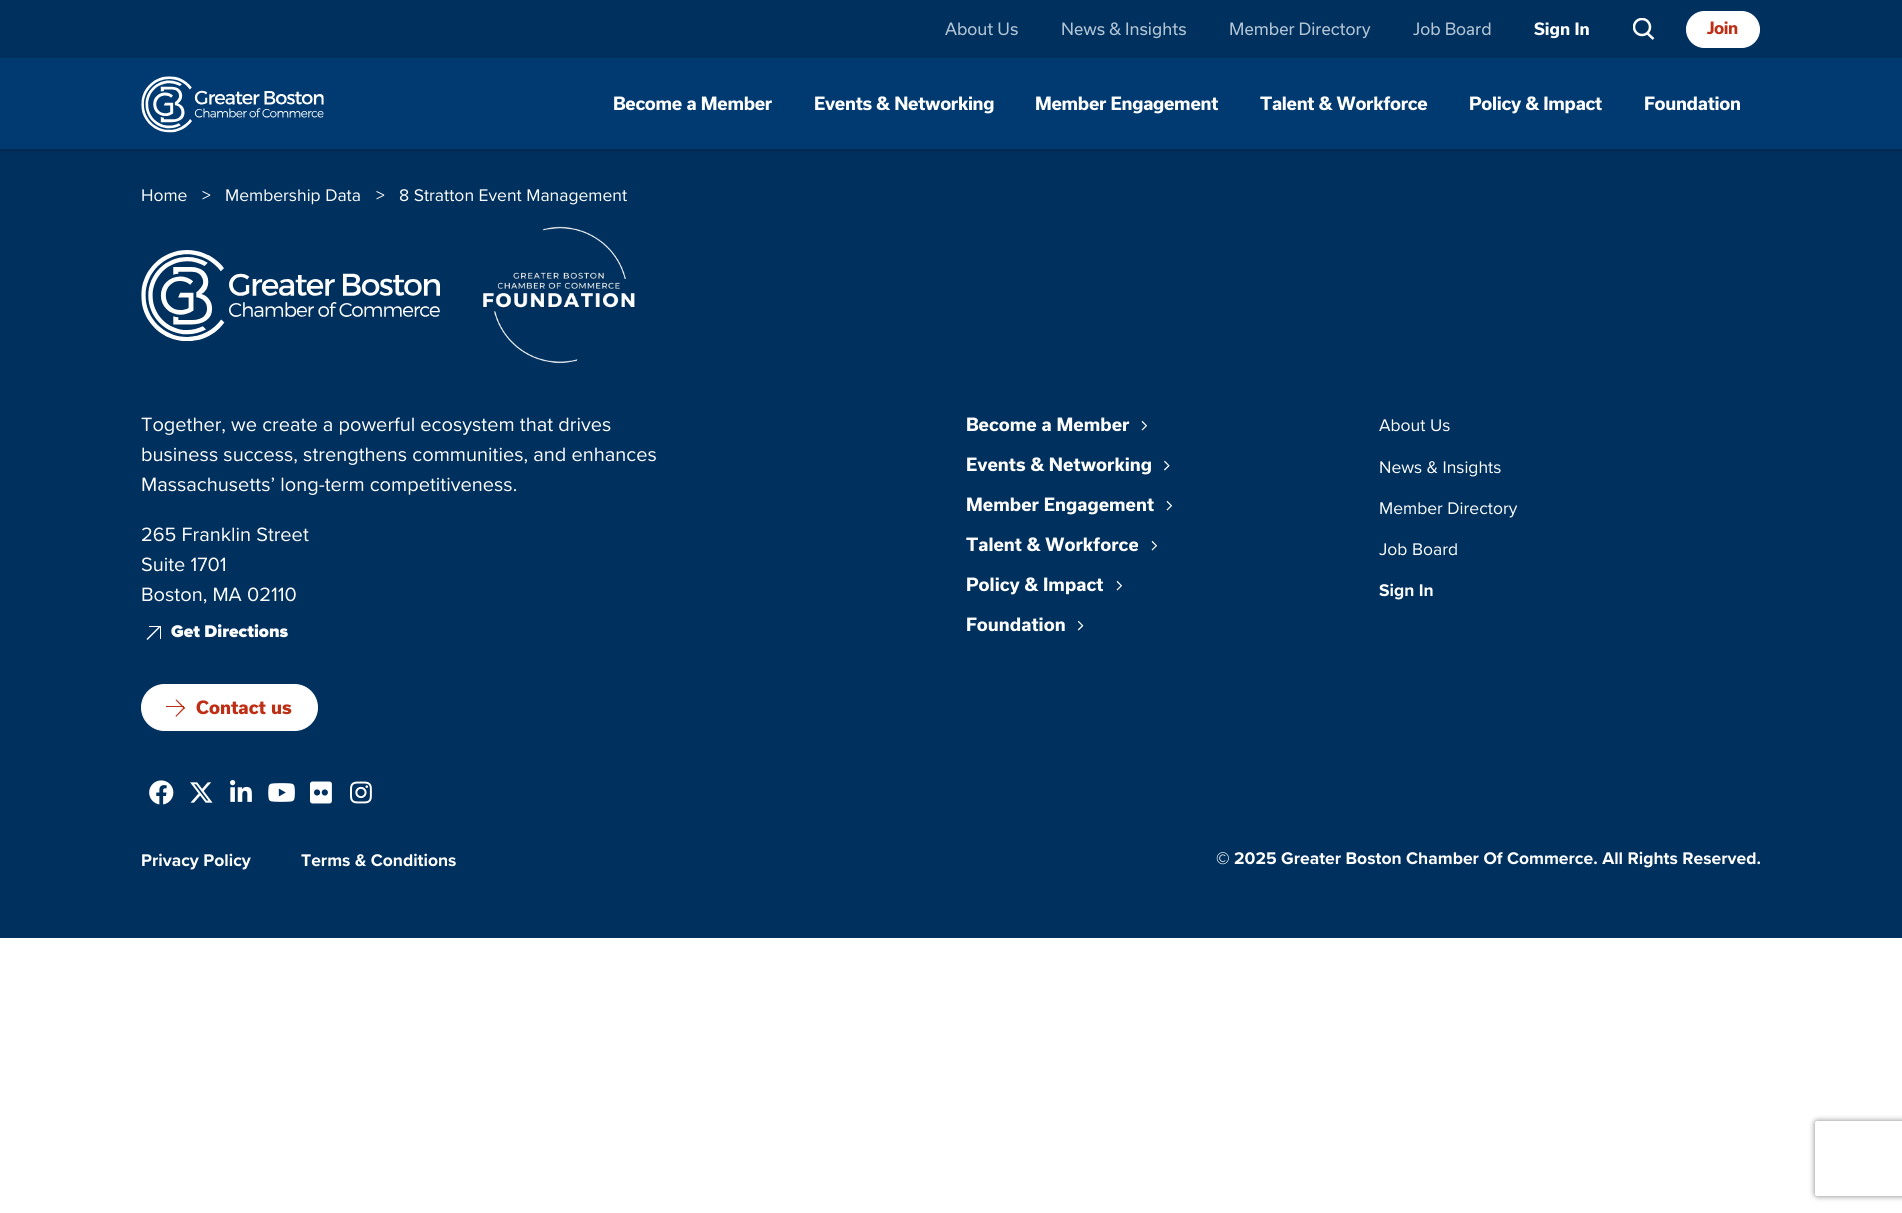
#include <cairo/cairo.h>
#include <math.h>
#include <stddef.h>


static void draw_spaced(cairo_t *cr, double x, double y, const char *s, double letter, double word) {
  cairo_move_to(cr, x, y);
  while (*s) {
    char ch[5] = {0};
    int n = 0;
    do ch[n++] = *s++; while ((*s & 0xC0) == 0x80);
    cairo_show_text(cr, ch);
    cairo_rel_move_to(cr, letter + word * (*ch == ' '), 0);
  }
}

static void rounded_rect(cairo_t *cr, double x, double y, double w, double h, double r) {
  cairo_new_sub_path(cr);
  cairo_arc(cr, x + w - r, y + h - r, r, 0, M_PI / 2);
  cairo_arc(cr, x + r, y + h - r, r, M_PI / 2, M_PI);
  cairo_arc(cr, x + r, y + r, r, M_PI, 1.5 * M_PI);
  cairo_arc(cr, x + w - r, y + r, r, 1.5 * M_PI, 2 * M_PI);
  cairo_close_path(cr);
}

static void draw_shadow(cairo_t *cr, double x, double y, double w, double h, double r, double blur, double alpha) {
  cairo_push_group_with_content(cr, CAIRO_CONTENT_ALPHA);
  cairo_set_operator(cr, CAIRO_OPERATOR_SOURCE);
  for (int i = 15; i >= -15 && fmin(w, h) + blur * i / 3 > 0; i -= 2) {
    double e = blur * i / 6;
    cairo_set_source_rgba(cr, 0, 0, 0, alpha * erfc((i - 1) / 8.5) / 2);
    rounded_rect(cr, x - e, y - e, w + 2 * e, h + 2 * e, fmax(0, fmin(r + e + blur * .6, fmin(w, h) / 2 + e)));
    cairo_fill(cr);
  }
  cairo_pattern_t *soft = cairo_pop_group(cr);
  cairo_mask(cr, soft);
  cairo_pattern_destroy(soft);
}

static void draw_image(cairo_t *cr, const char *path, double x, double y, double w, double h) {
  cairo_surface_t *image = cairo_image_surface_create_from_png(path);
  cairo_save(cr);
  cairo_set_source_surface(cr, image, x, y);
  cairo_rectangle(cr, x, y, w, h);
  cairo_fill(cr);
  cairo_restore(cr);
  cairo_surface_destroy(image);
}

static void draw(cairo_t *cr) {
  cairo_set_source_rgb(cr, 1, 1, 1);
  cairo_paint(cr);
  cairo_set_source_rgb(cr, 0, 48 / 255.0, 94 / 255.0);
  cairo_rectangle(cr, 0, 0, 1902, 58);
  cairo_fill(cr);
  cairo_save(cr);
  cairo_rectangle(cr, 1633, 18, 22, 22);
  cairo_clip(cr);
  cairo_arc(cr, 1642, 27, 8, 0, 2 * M_PI);
  cairo_set_source_rgb(cr, 1, 1, 1);
  cairo_set_line_width(cr, 2.5);
  cairo_stroke(cr);
  cairo_restore(cr);
  cairo_new_path(cr);
  cairo_move_to(cr, 1647, 33);
  cairo_line_to(cr, 1653.5, 39);
  cairo_set_source_rgb(cr, 1, 1, 1);
  cairo_set_line_width(cr, 2.5);
  cairo_stroke(cr);
  rounded_rect(cr, 1686.5, 11.5, 73, 36, 18);
  cairo_fill_preserve(cr);
  cairo_set_line_width(cr, 1);
  cairo_stroke(cr);
  cairo_set_source_rgb(cr, 0, 48 / 255.0, 93 / 255.0);
  cairo_rectangle(cr, 0, 149, 1902, 789);
  cairo_fill(cr);
  cairo_set_source_rgb(cr, 0, 0, 0);
  draw_shadow(cr, 0, 60, 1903, 91, 0, 1, 0.15);
  cairo_set_source_rgb(cr, 0, 58 / 255.0, 112 / 255.0);
  cairo_rectangle(cr, 0, 58, 1902, 91);
  cairo_fill(cr);
  draw_image(cr, "images/1.png", 141, 76, 183, 57);
  draw_image(cr, "images/2.png", 141, 250, 299, 91);
  draw_image(cr, "images/3.png", 483, 226, 152, 138);
  cairo_set_source_rgb(cr, 1, 1, 1);
  cairo_new_path(cr);
  cairo_move_to(cr, 146.5, 639);
  cairo_line_to(cr, 159, 626.5);
  cairo_line_to(cr, 160, 627.5);
  cairo_line_to(cr, 147.5, 640);
  cairo_close_path(cr);
  cairo_fill(cr);
  cairo_rectangle(cr, 149, 626, 12, 1);
  cairo_fill(cr);
  cairo_rectangle(cr, 160, 626, 1, 13);
  cairo_fill(cr);
  rounded_rect(cr, 141.5, 684.5, 176, 46, 23);
  cairo_fill_preserve(cr);
  cairo_stroke(cr);
  cairo_set_source_rgb(cr, 190 / 255.0, 46 / 255.0, 21 / 255.0);
  cairo_rectangle(cr, 166, 706, 18, 1);
  cairo_fill(cr);
  cairo_new_path(cr);
  cairo_move_to(cr, 176.5, 699.5);
  cairo_line_to(cr, 185, 708);
  cairo_line_to(cr, 184, 709);
  cairo_line_to(cr, 175.5, 700);
  cairo_close_path(cr);
  cairo_fill(cr);
  cairo_new_path(cr);
  cairo_move_to(cr, 184, 707);
  cairo_line_to(cr, 185, 708);
  cairo_line_to(cr, 176, 717);
  cairo_line_to(cr, 175.5, 716);
  cairo_close_path(cr);
  cairo_fill(cr);
  draw_image(cr, "images/4.png", 149, 780, 25, 25);
  draw_image(cr, "images/5.png", 190, 782, 23, 21);
  draw_image(cr, "images/6.png", 230, 780, 22, 22);
  draw_image(cr, "images/7.png", 268, 783, 27, 19);
  draw_image(cr, "images/8.png", 310, 781, 22, 23);
  draw_image(cr, "images/9.png", 350, 781, 22, 23);
  draw_image(cr, "images/10.png", 1141, 420, 6, 11);
  draw_image(cr, "images/11.png", 1164, 460, 6, 11);
  draw_image(cr, "images/12.png", 1166, 500, 6, 11);
  draw_image(cr, "images/10.png", 1151, 540, 6, 11);
  draw_image(cr, "images/10.png", 1116, 580, 6, 11);
  draw_image(cr, "images/13.png", 1078, 620, 6, 11);
  cairo_save(cr);
  cairo_set_fill_rule(cr, CAIRO_FILL_RULE_EVEN_ODD);
  cairo_new_path(cr);
  cairo_move_to(cr, 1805, 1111);
  cairo_line_to(cr, 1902, 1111);
  cairo_line_to(cr, 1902, 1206);
  cairo_line_to(cr, 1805, 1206);
  cairo_close_path(cr);
  cairo_move_to(cr, 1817.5, 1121);
  cairo_line_to(cr, 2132.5, 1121);
  cairo_curve_to(cr, 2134, 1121, 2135, 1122, 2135, 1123.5);
  cairo_line_to(cr, 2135, 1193.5);
  cairo_curve_to(cr, 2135, 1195, 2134, 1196, 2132.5, 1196);
  cairo_line_to(cr, 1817.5, 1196);
  cairo_curve_to(cr, 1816, 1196, 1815, 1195, 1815, 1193.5);
  cairo_line_to(cr, 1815, 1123.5);
  cairo_curve_to(cr, 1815, 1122, 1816, 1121, 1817.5, 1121);
  cairo_close_path(cr);
  cairo_clip(cr);
  cairo_set_source_rgb(cr, 128 / 255.0, 128 / 255.0, 128 / 255.0);
  draw_shadow(cr, 1815, 1121, 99, 75, 2.5, 3, 1);
  cairo_restore(cr);
  cairo_select_font_face(cr, "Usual", CAIRO_FONT_SLANT_NORMAL, CAIRO_FONT_WEIGHT_NORMAL);
  cairo_set_font_size(cr, 16.25);
  cairo_set_source_rgb(cr, 178 / 255.0, 196 / 255.0, 212 / 255.0);
  cairo_move_to(cr, 945, 35);
  cairo_show_text(cr, "About Us");
  cairo_move_to(cr, 1061, 35);
  cairo_show_text(cr, "News & Insights");
  cairo_move_to(cr, 1229, 35);
  cairo_show_text(cr, "Member Directory");
  cairo_move_to(cr, 1413, 35);
  cairo_show_text(cr, "Job Board");
  cairo_select_font_face(cr, "Usual", CAIRO_FONT_SLANT_NORMAL, CAIRO_FONT_WEIGHT_BOLD);
  cairo_set_source_rgb(cr, 1, 1, 1);
  cairo_move_to(cr, 1534, 35);
  cairo_show_text(cr, "Sign In");
  cairo_set_source_rgb(cr, 190 / 255.0, 46 / 255.0, 21 / 255.0);
  draw_spaced(cr, 1707, 34, "Join", -0.5, 0);
  cairo_set_font_size(cr, 17.5);
  cairo_set_source_rgb(cr, 1, 1, 1);
  draw_spaced(cr, 613, 110, "Become a Member", -0.3, 0);
  draw_spaced(cr, 814, 110, "Events & Networking", -0.3, 0);
  draw_spaced(cr, 1035, 110, "Member Engagement", -0.3, 0);
  draw_spaced(cr, 1260, 110, "Talent & Workforce", -0.3, 0);
  draw_spaced(cr, 1469, 110, "Policy & Impact", -0.3, 0);
  draw_spaced(cr, 1644, 110, "Foundation", -0.3, 0);
  cairo_select_font_face(cr, "Proxima Nova", CAIRO_FONT_SLANT_NORMAL, CAIRO_FONT_WEIGHT_NORMAL);
  cairo_move_to(cr, 141, 201);
  cairo_show_text(cr, "Home");
  cairo_move_to(cr, 202, 201);
  cairo_show_text(cr, ">");
  cairo_move_to(cr, 225, 201);
  cairo_show_text(cr, "Membership Data");
  cairo_move_to(cr, 376, 201);
  cairo_show_text(cr, ">");
  cairo_move_to(cr, 399, 201);
  cairo_show_text(cr, "8 Stratton Event Management");
  cairo_set_font_size(cr, 20);
  cairo_move_to(cr, 141, 431);
  cairo_show_text(cr, "Together, we create a powerful ecosystem that drives");
  cairo_move_to(cr, 141, 461);
  cairo_show_text(cr, "business success, strengthens communities, and enhances");
  cairo_move_to(cr, 141, 491);
  cairo_show_text(cr, "Massachusetts’ long-term competitiveness.");
  cairo_move_to(cr, 141, 541);
  cairo_show_text(cr, "265 Franklin Street");
  cairo_move_to(cr, 141, 571);
  cairo_show_text(cr, "Suite 1701");
  cairo_move_to(cr, 141, 601);
  cairo_show_text(cr, "Boston, MA 02110");
  cairo_select_font_face(cr, "Proxima Nova Black", CAIRO_FONT_SLANT_NORMAL, CAIRO_FONT_WEIGHT_NORMAL);
  cairo_set_font_size(cr, 17.5);
  cairo_move_to(cr, 171, 637);
  cairo_show_text(cr, "Get Directions");
  cairo_select_font_face(cr, "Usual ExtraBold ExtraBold", CAIRO_FONT_SLANT_NORMAL, CAIRO_FONT_WEIGHT_NORMAL);
  cairo_set_source_rgb(cr, 190 / 255.0, 46 / 255.0, 21 / 255.0);
  cairo_move_to(cr, 196, 714);
  cairo_show_text(cr, "Contact us");
  cairo_select_font_face(cr, "Usual", CAIRO_FONT_SLANT_NORMAL, CAIRO_FONT_WEIGHT_BOLD);
  cairo_set_source_rgb(cr, 1, 1, 1);
  cairo_move_to(cr, 966, 431);
  cairo_show_text(cr, "Become a Member");
  cairo_move_to(cr, 966, 471);
  cairo_show_text(cr, "Events & Networking");
  cairo_move_to(cr, 966, 511);
  cairo_show_text(cr, "Member Engagement");
  cairo_move_to(cr, 966, 551);
  cairo_show_text(cr, "Talent & Workforce");
  cairo_move_to(cr, 966, 591);
  cairo_show_text(cr, "Policy & Impact");
  cairo_move_to(cr, 966, 631);
  cairo_show_text(cr, "Foundation");
  cairo_select_font_face(cr, "Proxima Nova", CAIRO_FONT_SLANT_NORMAL, CAIRO_FONT_WEIGHT_NORMAL);
  cairo_move_to(cr, 1379, 431);
  cairo_show_text(cr, "About Us");
  cairo_move_to(cr, 1379, 473);
  cairo_show_text(cr, "News & Insights");
  cairo_move_to(cr, 1379, 514);
  cairo_show_text(cr, "Member Directory");
  cairo_move_to(cr, 1379, 555);
  cairo_show_text(cr, "Job Board");
  cairo_select_font_face(cr, "Proxima Nova", CAIRO_FONT_SLANT_NORMAL, CAIRO_FONT_WEIGHT_BOLD);
  cairo_move_to(cr, 1379, 596);
  cairo_show_text(cr, "Sign In");
  cairo_move_to(cr, 141, 866);
  cairo_show_text(cr, "Privacy Policy");
  cairo_move_to(cr, 301, 866);
  cairo_show_text(cr, "Terms & Conditions");
  cairo_move_to(cr, 1216, 864);
  cairo_show_text(cr, "© 2025 Greater Boston Chamber Of Commerce. All Rights Reserved.");
}

int main(void) {
  cairo_surface_t *surface = cairo_image_surface_create(CAIRO_FORMAT_RGB24, 1902, 1213);
  cairo_t *cr = cairo_create(surface);
  cairo_font_options_t *options = cairo_font_options_create();
  cairo_font_options_set_hint_metrics(options, CAIRO_HINT_METRICS_OFF);
  cairo_font_options_set_hint_style(options, CAIRO_HINT_STYLE_NONE);
  cairo_set_font_options(cr, options);
  cairo_set_miter_limit(cr, 4);
  draw(cr);
  cairo_surface_write_to_png(surface, "out.png");
  cairo_font_options_destroy(options);
  cairo_destroy(cr);
  cairo_surface_destroy(surface);
  return 0;
}
